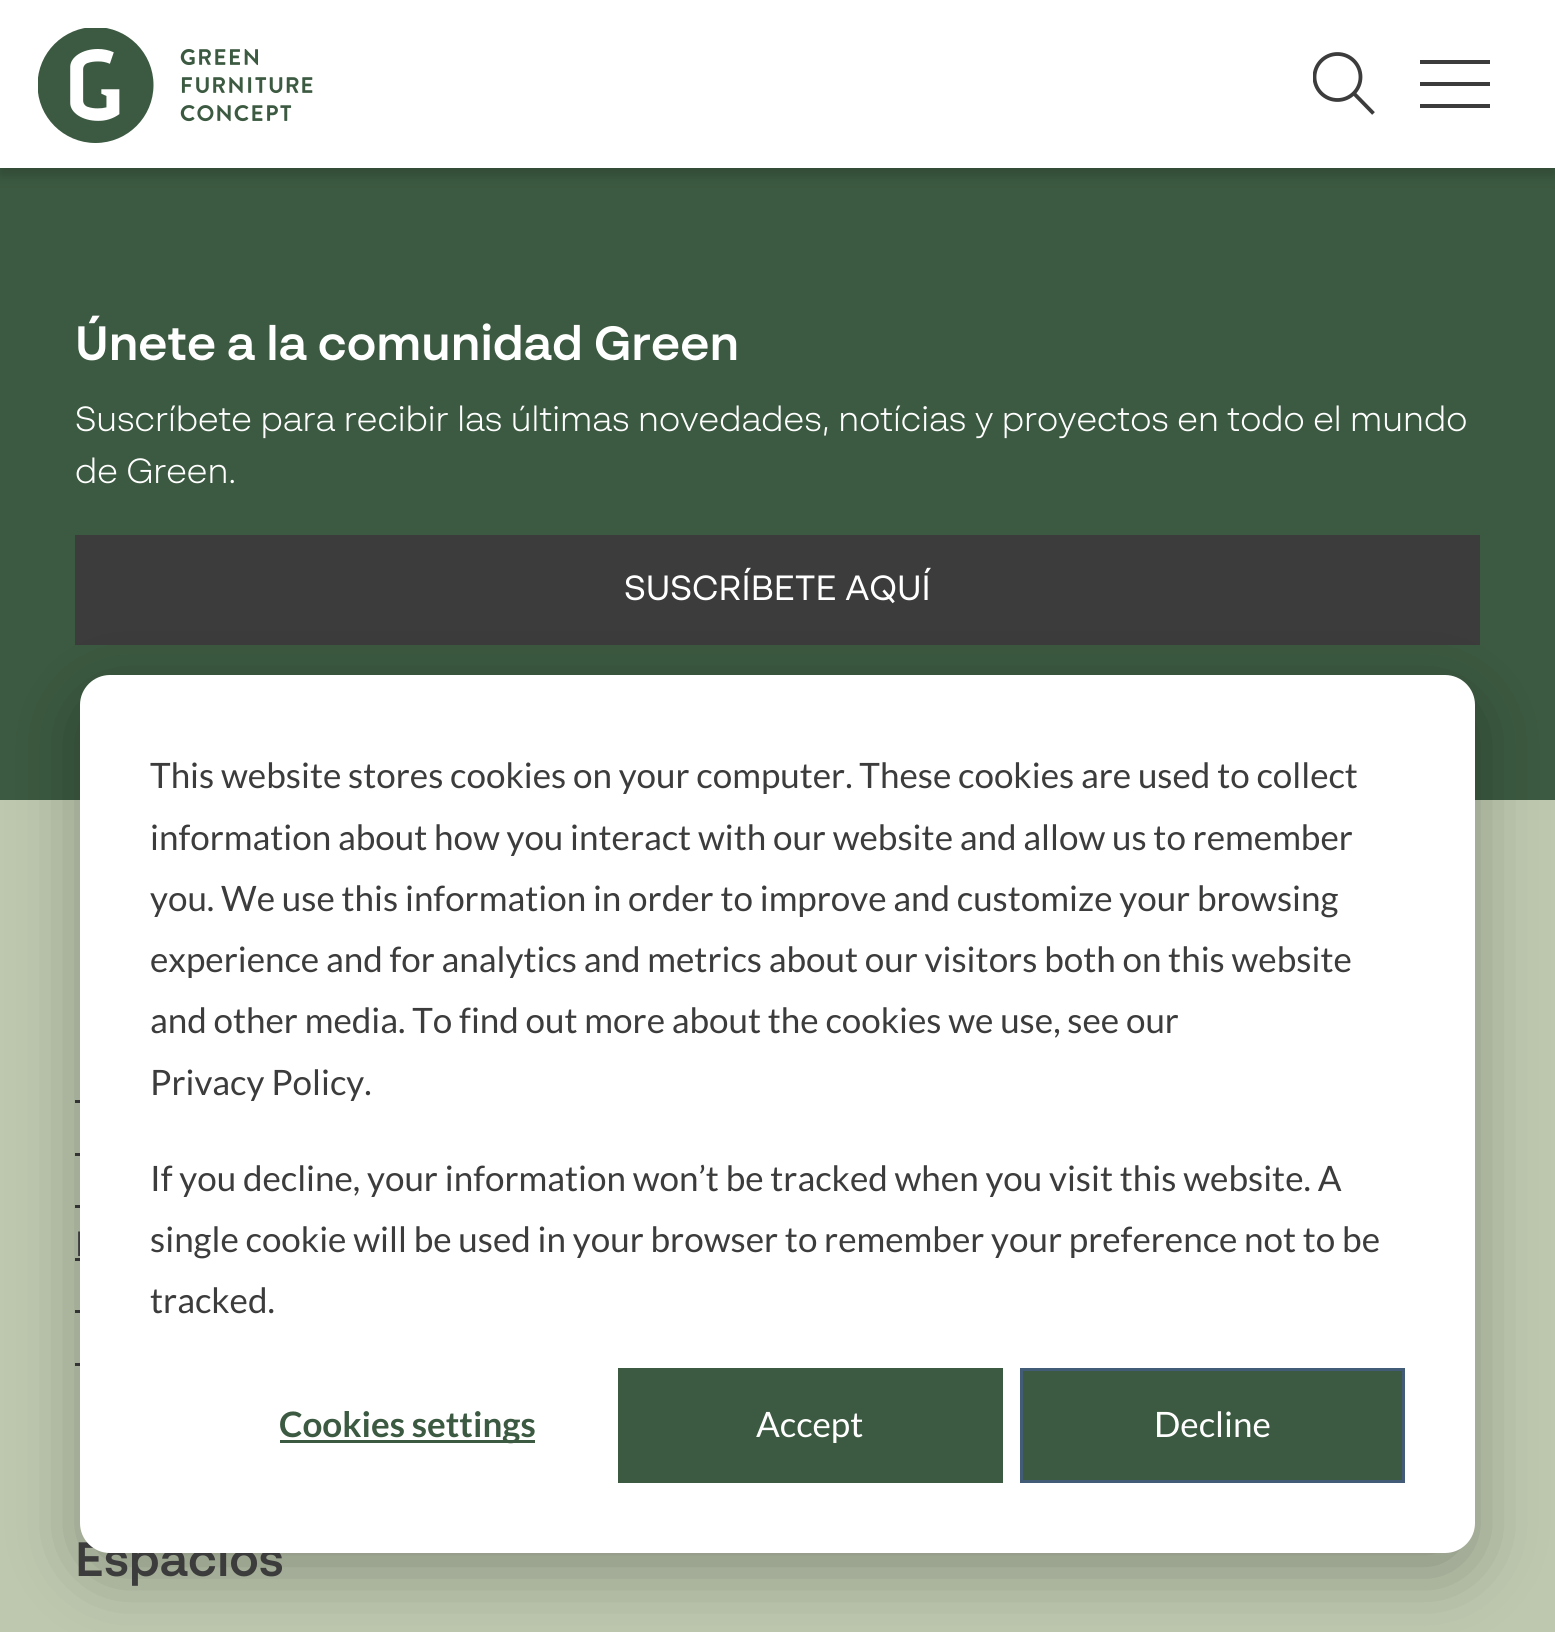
#include <cairo/cairo.h>
#include <math.h>
#include <stddef.h>


static void rounded_rect(cairo_t *cr, double x, double y, double w, double h, double r) {
  cairo_new_sub_path(cr);
  cairo_arc(cr, x + w - r, y + h - r, r, 0, M_PI / 2);
  cairo_arc(cr, x + r, y + h - r, r, M_PI / 2, M_PI);
  cairo_arc(cr, x + r, y + r, r, M_PI, 1.5 * M_PI);
  cairo_arc(cr, x + w - r, y + r, r, 1.5 * M_PI, 2 * M_PI);
  cairo_close_path(cr);
}

static void draw_shadow(cairo_t *cr, double x, double y, double w, double h, double r, double blur, double alpha) {
  cairo_push_group_with_content(cr, CAIRO_CONTENT_ALPHA);
  cairo_set_operator(cr, CAIRO_OPERATOR_SOURCE);
  for (int i = 15; i >= -15 && fmin(w, h) + blur * i / 3 > 0; i -= 2) {
    double e = blur * i / 6;
    cairo_set_source_rgba(cr, 0, 0, 0, alpha * erfc((i - 1) / 8.5) / 2);
    rounded_rect(cr, x - e, y - e, w + 2 * e, h + 2 * e, fmax(0, fmin(r + e + blur * .6, fmin(w, h) / 2 + e)));
    cairo_fill(cr);
  }
  cairo_pattern_t *soft = cairo_pop_group(cr);
  cairo_mask(cr, soft);
  cairo_pattern_destroy(soft);
}

static void draw_image(cairo_t *cr, const char *path, double x, double y, double w, double h) {
  cairo_surface_t *image = cairo_image_surface_create_from_png(path);
  cairo_save(cr);
  cairo_set_source_surface(cr, image, x, y);
  cairo_rectangle(cr, x, y, w, h);
  cairo_fill(cr);
  cairo_restore(cr);
  cairo_surface_destroy(image);
}

static void draw(cairo_t *cr) {
  cairo_set_source_rgb(cr, 190 / 255.0, 200 / 255.0, 175 / 255.0);
  cairo_paint(cr);
  cairo_set_source_rgb(cr, 60 / 255.0, 90 / 255.0, 65 / 255.0);
  cairo_rectangle(cr, 0, 168, 1555, 632);
  cairo_fill(cr);
  cairo_set_source_rgb(cr, 0, 0, 0);
  draw_shadow(cr, 0, 8, 1555, 167, 0, 7.5, 0.2);
  cairo_set_source_rgb(cr, 1, 1, 1);
  cairo_rectangle(cr, 0, 0, 1555, 168);
  cairo_fill(cr);
  draw_image(cr, "images/1.png", 38, 28, 275, 115);
  cairo_save(cr);
  cairo_rectangle(cr, 1313, 43, 62, 82);
  cairo_clip(cr);
  cairo_arc(cr, 1337.5, 77, 23, 0, 2 * M_PI);
  cairo_set_source_rgb(cr, 60 / 255.0, 60 / 255.0, 60 / 255.0);
  cairo_set_line_width(cr, 3.8);
  cairo_stroke(cr);
  cairo_restore(cr);
  cairo_new_path(cr);
  cairo_move_to(cr, 1353, 92.5);
  cairo_line_to(cr, 1373.5, 113.5);
  cairo_set_source_rgb(cr, 60 / 255.0, 60 / 255.0, 60 / 255.0);
  cairo_set_line_width(cr, 3.8);
  cairo_stroke(cr);
  cairo_rectangle(cr, 1420, 60, 70, 4);
  cairo_fill(cr);
  cairo_rectangle(cr, 1420, 82, 70, 4);
  cairo_fill(cr);
  cairo_rectangle(cr, 1420, 104, 70, 4);
  cairo_fill(cr);
  cairo_rectangle(cr, 75, 535, 1405, 110);
  cairo_fill(cr);
  cairo_rectangle(cr, 75, 1100, 5, 3);
  cairo_fill(cr);
  cairo_rectangle(cr, 75, 1153, 5, 3);
  cairo_fill(cr);
  cairo_rectangle(cr, 75, 1205, 5, 3);
  cairo_fill(cr);
  cairo_rectangle(cr, 75, 1258, 5, 3);
  cairo_fill(cr);
  cairo_rectangle(cr, 75, 1310, 5, 3);
  cairo_fill(cr);
  cairo_rectangle(cr, 75, 1363, 5, 3);
  cairo_fill(cr);
  cairo_set_source_rgb(cr, 0, 0, 0);
  draw_shadow(cr, 80, 695, 1395, 878, 30, 35, 0.28);
  cairo_select_font_face(cr, "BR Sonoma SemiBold", CAIRO_FONT_SLANT_NORMAL, CAIRO_FONT_WEIGHT_NORMAL);
  cairo_set_font_size(cr, 48.1);
  cairo_set_source_rgb(cr, 1, 1, 1);
  cairo_move_to(cr, 75, 360);
  cairo_show_text(cr, "Únete a la comunidad Green");
  cairo_select_font_face(cr, "BR Sonoma Light", CAIRO_FONT_SLANT_NORMAL, CAIRO_FONT_WEIGHT_NORMAL);
  cairo_set_font_size(cr, 35);
  cairo_move_to(cr, 75, 431);
  cairo_show_text(cr, "Suscríbete para recibir las últimas novedades, notícias y proyectos en todo el mundo");
  cairo_move_to(cr, 75, 483);
  cairo_show_text(cr, "de Green.");
  cairo_select_font_face(cr, "BRSonoma", CAIRO_FONT_SLANT_NORMAL, CAIRO_FONT_WEIGHT_NORMAL);
  cairo_move_to(cr, 624, 600);
  cairo_show_text(cr, "SUSCRÍBETE AQUÍ");
  cairo_select_font_face(cr, "BR Sonoma Light", CAIRO_FONT_SLANT_NORMAL, CAIRO_FONT_WEIGHT_NORMAL);
  cairo_set_source_rgb(cr, 60 / 255.0, 60 / 255.0, 60 / 255.0);
  cairo_move_to(cr, 75, 1256);
  cairo_show_text(cr, "L");
  cairo_select_font_face(cr, "BR Sonoma SemiBold", CAIRO_FONT_SLANT_NORMAL, CAIRO_FONT_WEIGHT_NORMAL);
  cairo_set_font_size(cr, 48.1);
  cairo_move_to(cr, 75, 1576);
  cairo_show_text(cr, "Espacios");
  cairo_set_source_rgb(cr, 1, 1, 1);
  rounded_rect(cr, 80, 675, 1395, 878, 30);
  cairo_fill(cr);
  cairo_select_font_face(cr, "Lato", CAIRO_FONT_SLANT_NORMAL, CAIRO_FONT_WEIGHT_NORMAL);
  cairo_set_font_size(cr, 35);
  cairo_set_source_rgb(cr, 60 / 255.0, 60 / 255.0, 60 / 255.0);
  cairo_move_to(cr, 150, 788);
  cairo_show_text(cr, "This website stores cookies on your computer. These cookies are used to collect");
  cairo_move_to(cr, 150, 850);
  cairo_show_text(cr, "information about how you interact with our website and allow us to remember");
  cairo_move_to(cr, 150, 911);
  cairo_show_text(cr, "you. We use this information in order to improve and customize your browsing");
  cairo_move_to(cr, 150, 972);
  cairo_show_text(cr, "experience and for analytics and metrics about our visitors both on this website");
  cairo_move_to(cr, 150, 1033);
  cairo_show_text(cr, "and other media. To find out more about the cookies we use, see our");
  cairo_move_to(cr, 150, 1095);
  cairo_show_text(cr, "Privacy Policy.");
  cairo_move_to(cr, 150, 1191);
  cairo_show_text(cr, "If you decline, your information won’t be tracked when you visit this website. A");
  cairo_move_to(cr, 150, 1252);
  cairo_show_text(cr, "single cookie will be used in your browser to remember your preference not to be");
  cairo_move_to(cr, 150, 1313);
  cairo_show_text(cr, "tracked.");
  cairo_set_source_rgb(cr, 60 / 255.0, 90 / 255.0, 65 / 255.0);
  cairo_rectangle(cr, 280, 1440, 255, 3);
  cairo_fill(cr);
  cairo_select_font_face(cr, "Lato", CAIRO_FONT_SLANT_NORMAL, CAIRO_FONT_WEIGHT_BOLD);
  cairo_move_to(cr, 279, 1437);
  cairo_show_text(cr, "Cookies settings");
  cairo_rectangle(cr, 618, 1368, 385, 115);
  cairo_fill(cr);
  cairo_select_font_face(cr, "Lato", CAIRO_FONT_SLANT_NORMAL, CAIRO_FONT_WEIGHT_NORMAL);
  cairo_set_source_rgb(cr, 1, 1, 1);
  cairo_move_to(cr, 756, 1437);
  cairo_show_text(cr, "Accept");
  cairo_set_source_rgb(cr, 60 / 255.0, 90 / 255.0, 65 / 255.0);
  cairo_rectangle(cr, 1021.5, 1369.5, 382, 112);
  cairo_fill_preserve(cr);
  cairo_set_source_rgb(cr, 66 / 255.0, 91 / 255.0, 118 / 255.0);
  cairo_set_line_width(cr, 3);
  cairo_stroke(cr);
  cairo_set_source_rgb(cr, 1, 1, 1);
  cairo_move_to(cr, 1154, 1437);
  cairo_show_text(cr, "Decline");
}

int main(void) {
  cairo_surface_t *surface = cairo_image_surface_create(CAIRO_FORMAT_RGB24, 1555, 1632);
  cairo_t *cr = cairo_create(surface);
  cairo_font_options_t *options = cairo_font_options_create();
  cairo_font_options_set_hint_metrics(options, CAIRO_HINT_METRICS_OFF);
  cairo_font_options_set_hint_style(options, CAIRO_HINT_STYLE_NONE);
  cairo_set_font_options(cr, options);
  cairo_set_miter_limit(cr, 4);
  draw(cr);
  cairo_surface_write_to_png(surface, "out.png");
  cairo_font_options_destroy(options);
  cairo_destroy(cr);
  cairo_surface_destroy(surface);
  return 0;
}
